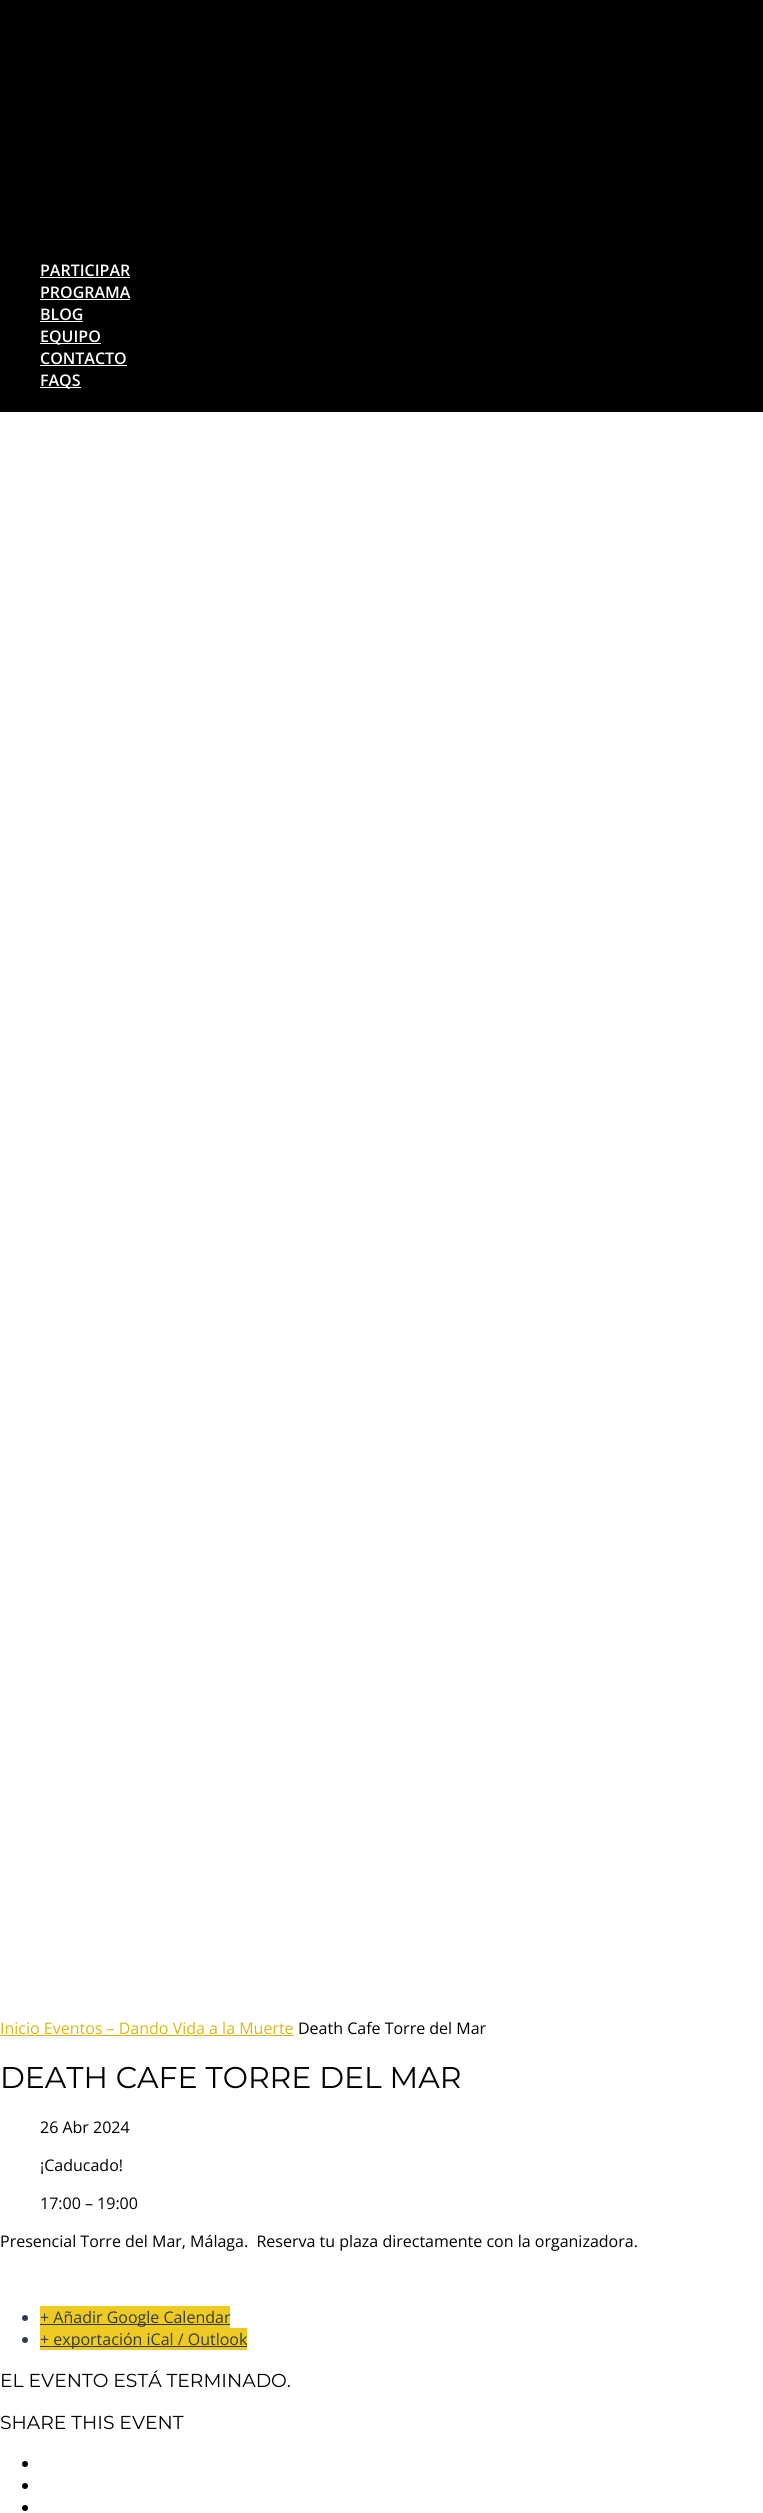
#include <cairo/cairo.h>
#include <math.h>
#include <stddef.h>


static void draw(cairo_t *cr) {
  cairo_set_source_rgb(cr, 1, 1, 1);
  cairo_paint(cr);
  cairo_set_source_rgb(cr, 0, 0, 0);
  cairo_rectangle(cr, 0, 0, 763, 412);
  cairo_fill(cr);
  cairo_set_source_rgb(cr, 1, 1, 1);
  cairo_rectangle(cr, 40, 277, 90, 1);
  cairo_fill(cr);
  cairo_rectangle(cr, 40, 299, 90, 1);
  cairo_fill(cr);
  cairo_rectangle(cr, 40, 321, 43, 1);
  cairo_fill(cr);
  cairo_rectangle(cr, 40, 343, 61, 1);
  cairo_fill(cr);
  cairo_rectangle(cr, 40, 365, 87, 1);
  cairo_fill(cr);
  cairo_rectangle(cr, 40, 387, 41, 1);
  cairo_fill(cr);
  cairo_set_source_rgb(cr, 219 / 255.0, 182 / 255.0, 15 / 255.0);
  cairo_rectangle(cr, 0, 2035, 294, 1);
  cairo_fill(cr);
  cairo_set_source_rgb(cr, 49 / 255.0, 59 / 255.0, 72 / 255.0);
  cairo_arc(cr, 25, 2318, 3, 0, 2 * M_PI);
  cairo_fill(cr);
  cairo_set_source_rgb(cr, 239 / 255.0, 202 / 255.0, 35 / 255.0);
  cairo_rectangle(cr, 40, 2306, 190, 22);
  cairo_fill(cr);
  cairo_set_source_rgb(cr, 49 / 255.0, 59 / 255.0, 72 / 255.0);
  cairo_rectangle(cr, 40, 2324, 190, 1);
  cairo_fill(cr);
  cairo_arc(cr, 25, 2340, 3, 0, 2 * M_PI);
  cairo_fill(cr);
  cairo_set_source_rgb(cr, 239 / 255.0, 202 / 255.0, 35 / 255.0);
  cairo_rectangle(cr, 40, 2328, 207, 22);
  cairo_fill(cr);
  cairo_set_source_rgb(cr, 49 / 255.0, 59 / 255.0, 72 / 255.0);
  cairo_rectangle(cr, 40, 2346, 207, 1);
  cairo_fill(cr);
  cairo_set_source_rgb(cr, 0, 0, 0);
  cairo_arc(cr, 25, 2464, 3, 0, 2 * M_PI);
  cairo_fill(cr);
  cairo_arc(cr, 25, 2486, 3, 0, 2 * M_PI);
  cairo_fill(cr);
  cairo_arc(cr, 25, 2508, 3, 0, 2 * M_PI);
  cairo_fill(cr);
  cairo_select_font_face(cr, "Open Sans SemiBold", CAIRO_FONT_SLANT_NORMAL, CAIRO_FONT_WEIGHT_NORMAL);
  cairo_set_font_size(cr, 16);
  cairo_set_source_rgb(cr, 1, 1, 1);
  cairo_move_to(cr, 40, 276);
  cairo_show_text(cr, "PARTICIPAR");
  cairo_move_to(cr, 40, 298);
  cairo_show_text(cr, "PROGRAMA");
  cairo_move_to(cr, 40, 320);
  cairo_show_text(cr, "BLOG");
  cairo_move_to(cr, 40, 342);
  cairo_show_text(cr, "EQUIPO");
  cairo_move_to(cr, 40, 364);
  cairo_show_text(cr, "CONTACTO");
  cairo_move_to(cr, 40, 386);
  cairo_show_text(cr, "FAQS");
  cairo_select_font_face(cr, "Open Sans", CAIRO_FONT_SLANT_NORMAL, CAIRO_FONT_WEIGHT_NORMAL);
  cairo_set_source_rgb(cr, 219 / 255.0, 182 / 255.0, 15 / 255.0);
  cairo_move_to(cr, 0, 2034);
  cairo_show_text(cr, "Inicio Eventos – Dando Vida a la Muerte");
  cairo_set_source_rgb(cr, 0, 0, 0);
  cairo_move_to(cr, 298, 2034);
  cairo_show_text(cr, "Death Cafe Torre del Mar");
  cairo_select_font_face(cr, "Montserrat", CAIRO_FONT_SLANT_NORMAL, CAIRO_FONT_WEIGHT_NORMAL);
  cairo_set_font_size(cr, 30);
  cairo_move_to(cr, 0, 2088);
  cairo_show_text(cr, "DEATH CAFE TORRE DEL MAR");
  cairo_select_font_face(cr, "Open Sans", CAIRO_FONT_SLANT_NORMAL, CAIRO_FONT_WEIGHT_NORMAL);
  cairo_set_font_size(cr, 16);
  cairo_move_to(cr, 40, 2133);
  cairo_show_text(cr, "26 Abr 2024");
  cairo_move_to(cr, 40, 2171);
  cairo_show_text(cr, "¡Caducado!");
  cairo_move_to(cr, 40, 2209);
  cairo_show_text(cr, "17:00 – 19:00");
  cairo_move_to(cr, 0, 2247);
  cairo_show_text(cr, "Presencial Torre del Mar, Málaga.  Reserva tu plaza directamente con la organizadora.");
  cairo_set_source_rgb(cr, 49 / 255.0, 59 / 255.0, 72 / 255.0);
  cairo_move_to(cr, 40, 2323);
  cairo_show_text(cr, "+ Añadir Google Calendar");
  cairo_move_to(cr, 40, 2345);
  cairo_show_text(cr, "+ exportación iCal / Outlook");
  cairo_select_font_face(cr, "Montserrat", CAIRO_FONT_SLANT_NORMAL, CAIRO_FONT_WEIGHT_NORMAL);
  cairo_set_font_size(cr, 18.75);
  cairo_set_source_rgb(cr, 0, 0, 0);
  cairo_move_to(cr, 0, 2387);
  cairo_show_text(cr, "EL EVENTO ESTÁ TERMINADO.");
  cairo_move_to(cr, 0, 2429);
  cairo_show_text(cr, "SHARE THIS EVENT");
}

int main(void) {
  cairo_surface_t *surface = cairo_image_surface_create(CAIRO_FORMAT_RGB24, 763, 2513);
  cairo_t *cr = cairo_create(surface);
  cairo_font_options_t *options = cairo_font_options_create();
  cairo_font_options_set_hint_metrics(options, CAIRO_HINT_METRICS_OFF);
  cairo_font_options_set_hint_style(options, CAIRO_HINT_STYLE_NONE);
  cairo_set_font_options(cr, options);
  cairo_set_miter_limit(cr, 4);
  draw(cr);
  cairo_surface_write_to_png(surface, "out.png");
  cairo_font_options_destroy(options);
  cairo_destroy(cr);
  cairo_surface_destroy(surface);
  return 0;
}
